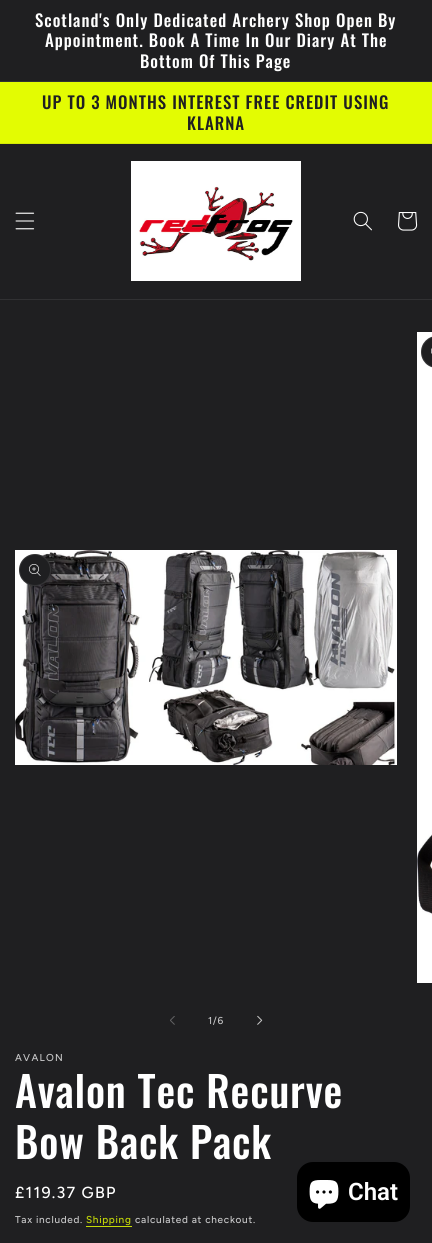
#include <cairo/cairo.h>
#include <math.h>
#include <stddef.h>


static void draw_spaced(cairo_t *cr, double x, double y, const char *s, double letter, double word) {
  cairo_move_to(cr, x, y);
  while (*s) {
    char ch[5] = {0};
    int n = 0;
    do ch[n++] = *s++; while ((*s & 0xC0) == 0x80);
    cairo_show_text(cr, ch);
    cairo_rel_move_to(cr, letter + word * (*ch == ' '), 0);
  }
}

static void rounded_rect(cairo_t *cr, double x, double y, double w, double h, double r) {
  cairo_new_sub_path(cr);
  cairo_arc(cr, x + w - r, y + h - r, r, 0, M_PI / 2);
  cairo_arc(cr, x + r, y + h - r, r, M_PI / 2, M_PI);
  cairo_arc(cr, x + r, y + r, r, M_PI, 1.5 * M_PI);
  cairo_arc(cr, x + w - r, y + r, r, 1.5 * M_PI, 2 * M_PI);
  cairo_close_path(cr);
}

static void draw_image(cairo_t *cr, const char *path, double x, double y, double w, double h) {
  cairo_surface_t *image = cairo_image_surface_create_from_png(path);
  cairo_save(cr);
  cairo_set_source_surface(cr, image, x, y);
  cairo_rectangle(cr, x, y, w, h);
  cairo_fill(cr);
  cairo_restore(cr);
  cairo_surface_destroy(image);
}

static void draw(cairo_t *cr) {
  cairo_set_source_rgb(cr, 31 / 255.0, 31 / 255.0, 33 / 255.0);
  cairo_paint(cr);
  cairo_set_source_rgb(cr, 49 / 255.0, 49 / 255.0, 51 / 255.0);
  cairo_rectangle(cr, 0, 81, 432, 1);
  cairo_fill(cr);
  cairo_set_source_rgb(cr, 227 / 255.0, 252 / 255.0, 2 / 255.0);
  cairo_rectangle(cr, 0, 82, 432, 61);
  cairo_fill(cr);
  cairo_set_source_rgb(cr, 211 / 255.0, 234 / 255.0, 4 / 255.0);
  cairo_rectangle(cr, 0, 143, 432, 1);
  cairo_fill(cr);
  cairo_set_source_rgb(cr, 49 / 255.0, 49 / 255.0, 51 / 255.0);
  cairo_rectangle(cr, 0, 299, 432, 1);
  cairo_fill(cr);
  draw_image(cr, "images/1.png", 15, 212, 20, 18);
  draw_image(cr, "images/2.png", 131, 161, 170, 120);
  draw_image(cr, "images/3.png", 353, 211, 19, 20);
  draw_image(cr, "images/4.png", 398, 212, 20, 19);
  draw_image(cr, "images/5.png", 15, 550, 382, 215);
  cairo_set_source_rgb(cr, 31 / 255.0, 31 / 255.0, 33 / 255.0);
  cairo_arc(cr, 35, 570, 16, 0, 2 * M_PI);
  cairo_fill(cr);
  cairo_arc(cr, 35, 570, 15.5, 0, 2 * M_PI);
  cairo_set_source_rgba(cr, 1, 1, 1, 0.1);
  cairo_set_line_width(cr, 1);
  cairo_stroke(cr);
  draw_image(cr, "images/6.png", 29, 564, 12, 12);
  draw_image(cr, "images/7.png", 417, 332, 15, 651);
  cairo_set_source_rgb(cr, 31 / 255.0, 31 / 255.0, 33 / 255.0);
  cairo_new_path(cr);
  cairo_move_to(cr, 437, 336);
  cairo_line_to(cr, 432, 336);
  cairo_line_to(cr, 432, 368);
  cairo_line_to(cr, 437, 368);
  cairo_curve_to(cr, 428, 368, 421, 361, 421, 352);
  cairo_curve_to(cr, 421, 343, 428, 336, 437, 336);
  cairo_close_path(cr);
  cairo_fill(cr);
  rounded_rect(cr, 421.5, 336.5, 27, 31, 15.5);
  cairo_set_source_rgba(cr, 1, 1, 1, 0.1);
  cairo_stroke(cr);
  draw_image(cr, "images/8.png", 431, 348, 1, 6);
  draw_image(cr, "images/9.png", 170, 1016, 5, 9);
  draw_image(cr, "images/10.png", 257, 1015, 6, 10);
  cairo_set_source_rgb(cr, 198 / 255.0, 219 / 255.0, 7 / 255.0);
  cairo_rectangle(cr, 86, 1226, 46, 1);
  cairo_fill(cr);
  cairo_set_source_rgb(cr, 0, 0, 0);
  rounded_rect(cr, 297, 1162, 113, 60, 16);
  cairo_fill(cr);
  draw_image(cr, "images/11.png", 309, 1180, 30, 29);
  cairo_select_font_face(cr, "Oswald Medium", CAIRO_FONT_SLANT_NORMAL, CAIRO_FONT_WEIGHT_NORMAL);
  cairo_set_font_size(cr, 16.8);
  cairo_set_source_rgb(cr, 1, 1, 1);
  draw_spaced(cr, 35, 27, "Scotland's Only Dedicated Archery Shop Open By", 1, 0);
  draw_spaced(cr, 45, 47, "Appointment. Book A Time In Our Diary At The", 1, 0);
  draw_spaced(cr, 140, 68, "Bottom Of This Page", 1, 0);
  cairo_set_source_rgb(cr, 31 / 255.0, 31 / 255.0, 33 / 255.0);
  draw_spaced(cr, 42, 109, "UP TO 3 MONTHS INTEREST FREE CREDIT USING", 1, 0);
  draw_spaced(cr, 187, 130, "KLARNA", 1, 0);
  cairo_select_font_face(cr, "Figtree Medium", CAIRO_FONT_SLANT_NORMAL, CAIRO_FONT_WEIGHT_NORMAL);
  cairo_set_font_size(cr, 10);
  cairo_set_source_rgb(cr, 199 / 255.0, 199 / 255.0, 200 / 255.0);
  draw_spaced(cr, 208, 1024, "1/6", 0.7, 0);
  draw_spaced(cr, 15, 1061, "AVALON", 1.25, 0);
  cairo_select_font_face(cr, "Oswald Medium", CAIRO_FONT_SLANT_NORMAL, CAIRO_FONT_WEIGHT_NORMAL);
  cairo_set_font_size(cr, 42);
  cairo_set_source_rgb(cr, 1, 1, 1);
  draw_spaced(cr, 15, 1108, "Avalon Tec Recurve", 0.8, 0);
  draw_spaced(cr, 15, 1159, "Bow Back Pack", 0.8, 0);
  cairo_select_font_face(cr, "Figtree Medium", CAIRO_FONT_SLANT_NORMAL, CAIRO_FONT_WEIGHT_NORMAL);
  cairo_set_font_size(cr, 16);
  draw_spaced(cr, 15, 1198, "£119.37 GBP", 1.25, 0);
  cairo_set_font_size(cr, 10);
  cairo_set_source_rgb(cr, 199 / 255.0, 199 / 255.0, 200 / 255.0);
  draw_spaced(cr, 15, 1223, "Tax included.", 0.7, 0);
  cairo_set_source_rgb(cr, 198 / 255.0, 219 / 255.0, 7 / 255.0);
  draw_spaced(cr, 86, 1223, "Shipping", 0.7, 0);
  cairo_set_source_rgb(cr, 199 / 255.0, 199 / 255.0, 200 / 255.0);
  draw_spaced(cr, 135, 1223, "calculated at checkout.", 0.7, 0);
  cairo_select_font_face(cr, "Roboto SemiBold", CAIRO_FONT_SLANT_NORMAL, CAIRO_FONT_WEIGHT_NORMAL);
  cairo_set_font_size(cr, 24);
  cairo_set_source_rgb(cr, 1, 1, 1);
  cairo_move_to(cr, 348, 1200);
  cairo_show_text(cr, "Chat");
}

int main(void) {
  cairo_surface_t *surface = cairo_image_surface_create(CAIRO_FORMAT_RGB24, 432, 1243);
  cairo_t *cr = cairo_create(surface);
  cairo_font_options_t *options = cairo_font_options_create();
  cairo_font_options_set_hint_metrics(options, CAIRO_HINT_METRICS_OFF);
  cairo_font_options_set_hint_style(options, CAIRO_HINT_STYLE_NONE);
  cairo_set_font_options(cr, options);
  cairo_set_miter_limit(cr, 4);
  draw(cr);
  cairo_surface_write_to_png(surface, "out.png");
  cairo_font_options_destroy(options);
  cairo_destroy(cr);
  cairo_surface_destroy(surface);
  return 0;
}
